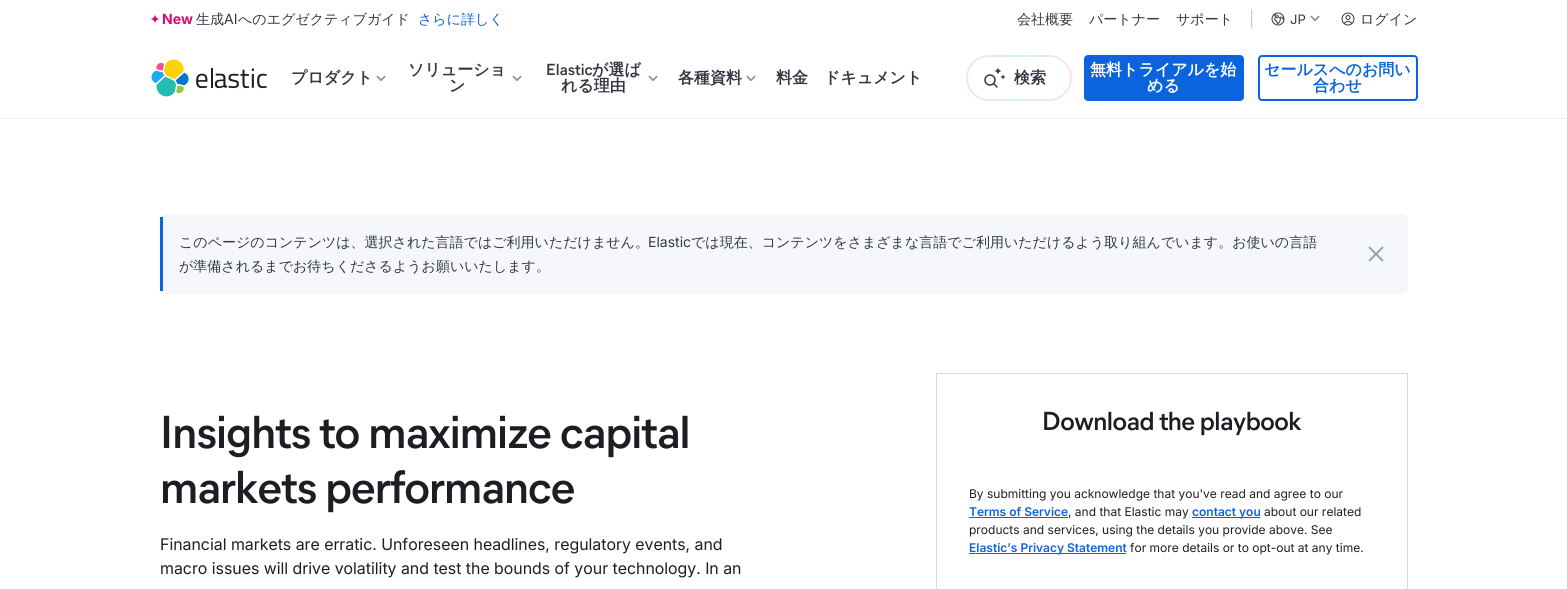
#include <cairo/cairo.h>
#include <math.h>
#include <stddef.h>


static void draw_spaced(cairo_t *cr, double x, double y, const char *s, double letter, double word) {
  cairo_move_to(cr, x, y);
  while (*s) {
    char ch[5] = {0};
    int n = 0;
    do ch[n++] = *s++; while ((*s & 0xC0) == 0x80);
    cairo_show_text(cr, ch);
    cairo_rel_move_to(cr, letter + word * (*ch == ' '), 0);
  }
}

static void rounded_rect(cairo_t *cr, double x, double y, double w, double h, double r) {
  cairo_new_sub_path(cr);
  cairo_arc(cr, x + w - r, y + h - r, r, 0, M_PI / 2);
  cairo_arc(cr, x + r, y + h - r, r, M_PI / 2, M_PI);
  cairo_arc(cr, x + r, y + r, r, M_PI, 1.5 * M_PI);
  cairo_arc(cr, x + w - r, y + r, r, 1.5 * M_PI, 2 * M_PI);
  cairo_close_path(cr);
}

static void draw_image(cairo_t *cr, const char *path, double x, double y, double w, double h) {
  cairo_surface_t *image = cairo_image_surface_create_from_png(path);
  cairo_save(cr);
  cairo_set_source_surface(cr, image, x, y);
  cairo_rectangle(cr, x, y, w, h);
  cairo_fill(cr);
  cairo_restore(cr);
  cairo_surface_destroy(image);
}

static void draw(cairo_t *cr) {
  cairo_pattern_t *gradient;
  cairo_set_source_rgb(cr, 1, 1, 1);
  cairo_paint(cr);
  cairo_set_source_rgb(cr, 238 / 255.0, 239 / 255.0, 241 / 255.0);
  cairo_rectangle(cr, 0, 118, 1567, 1);
  cairo_fill(cr);
  draw_image(cr, "images/1.png", 150, 14, 10, 10);
  draw_image(cr, "images/2.png", 1271, 12, 14, 14);
  draw_image(cr, "images/3.png", 1310, 15, 10, 6);
  draw_image(cr, "images/4.png", 1341, 12, 14, 14);
  draw_image(cr, "images/5.png", 151, 59, 116, 38);
  draw_image(cr, "images/3.png", 376, 75, 10, 6);
  draw_image(cr, "images/3.png", 512, 75, 10, 6);
  draw_image(cr, "images/3.png", 648, 75, 10, 6);
  draw_image(cr, "images/3.png", 746, 75, 10, 6);
  gradient = cairo_pattern_create_linear(966, 78, 1178, 78);
  cairo_pattern_add_color_stop_rgba(gradient, 0, 252 / 255.0, 225 / 255.0, 237 / 255.0, 1);
  cairo_pattern_add_color_stop_rgba(gradient, 0.25, 212 / 255.0, 244 / 255.0, 243 / 255.0, 1);
  cairo_pattern_add_color_stop_rgba(gradient, 0.5, 252 / 255.0, 225 / 255.0, 237 / 255.0, 1);
  cairo_pattern_add_color_stop_rgba(gradient, 0.75, 212 / 255.0, 244 / 255.0, 243 / 255.0, 1);
  cairo_pattern_add_color_stop_rgba(gradient, 1, 252 / 255.0, 225 / 255.0, 237 / 255.0, 1);
  cairo_set_source(cr, gradient);
  cairo_pattern_destroy(gradient);
  rounded_rect(cr, 966, 55, 106, 46, 23);
  cairo_fill(cr);
  cairo_set_source_rgb(cr, 1, 1, 1);
  rounded_rect(cr, 968, 57, 102, 42, 21);
  cairo_fill(cr);
  draw_image(cr, "images/6.png", 984, 67, 22, 21);
  cairo_set_source_rgb(cr, 11 / 255.0, 100 / 255.0, 221 / 255.0);
  rounded_rect(cr, 1085, 56, 158, 44, 3);
  cairo_fill_preserve(cr);
  cairo_stroke(cr);
  rounded_rect(cr, 1259, 56, 158, 44, 3);
  cairo_stroke(cr);
  cairo_set_source_rgb(cr, 245 / 255.0, 247 / 255.0, 250 / 255.0);
  rounded_rect(cr, 160, 214, 1248, 80, 6);
  cairo_fill(cr);
  cairo_set_source_rgb(cr, 11 / 255.0, 100 / 255.0, 221 / 255.0);
  cairo_rectangle(cr, 160, 217, 3, 74);
  cairo_fill(cr);
  draw_image(cr, "images/7.png", 1368, 246, 16, 16);
  cairo_rectangle(cr, 936.5, 373.5, 471, 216);
  cairo_set_source_rgb(cr, 212 / 255.0, 218 / 255.0, 229 / 255.0);
  cairo_set_line_width(cr, 1);
  cairo_stroke(cr);
  cairo_set_source_rgb(cr, 11 / 255.0, 100 / 255.0, 221 / 255.0);
  cairo_rectangle(cr, 969, 517, 99, 1);
  cairo_fill(cr);
  cairo_rectangle(cr, 1192, 517, 68, 1);
  cairo_fill(cr);
  cairo_rectangle(cr, 969, 553, 157, 1);
  cairo_fill(cr);
  cairo_select_font_face(cr, "Inter", CAIRO_FONT_SLANT_NORMAL, CAIRO_FONT_WEIGHT_BOLD);
  cairo_set_font_size(cr, 14);
  cairo_set_source_rgb(cr, 221 / 255.0, 10 / 255.0, 115 / 255.0);
  cairo_move_to(cr, 162, 24);
  cairo_show_text(cr, "New");
  cairo_select_font_face(cr, "WenQuanYi Zen Hei Medium", CAIRO_FONT_SLANT_NORMAL, CAIRO_FONT_WEIGHT_NORMAL);
  cairo_set_source_rgb(cr, 52 / 255.0, 55 / 255.0, 65 / 255.0);
  cairo_move_to(cr, 196, 24);
  cairo_show_text(cr, "生成");
  cairo_select_font_face(cr, "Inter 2", CAIRO_FONT_SLANT_NORMAL, CAIRO_FONT_WEIGHT_NORMAL);
  cairo_move_to(cr, 224, 24);
  cairo_show_text(cr, "AI");
  cairo_select_font_face(cr, "WenQuanYi Zen Hei Medium", CAIRO_FONT_SLANT_NORMAL, CAIRO_FONT_WEIGHT_NORMAL);
  cairo_move_to(cr, 238, 24);
  cairo_show_text(cr, "へのエグゼクティブガイド");
  cairo_set_source_rgb(cr, 11 / 255.0, 100 / 255.0, 221 / 255.0);
  cairo_move_to(cr, 418, 24);
  cairo_show_text(cr, "さらに詳しく");
  cairo_set_source_rgb(cr, 52 / 255.0, 55 / 255.0, 65 / 255.0);
  cairo_move_to(cr, 1017, 24);
  cairo_show_text(cr, "会社概要");
  cairo_move_to(cr, 1089, 24);
  cairo_show_text(cr, "パートナー");
  cairo_move_to(cr, 1176, 24);
  cairo_show_text(cr, "サポート");
  cairo_select_font_face(cr, "Inter", CAIRO_FONT_SLANT_NORMAL, CAIRO_FONT_WEIGHT_NORMAL);
  cairo_set_font_size(cr, 16);
  cairo_set_source_rgb(cr, 204 / 255.0, 204 / 255.0, 204 / 255.0);
  cairo_move_to(cr, 1249, 25);
  cairo_show_text(cr, "|");
  cairo_select_font_face(cr, "Inter 2", CAIRO_FONT_SLANT_NORMAL, CAIRO_FONT_WEIGHT_NORMAL);
  cairo_set_font_size(cr, 13);
  cairo_set_source_rgb(cr, 52 / 255.0, 55 / 255.0, 65 / 255.0);
  cairo_move_to(cr, 1290, 24);
  cairo_show_text(cr, "JP");
  cairo_select_font_face(cr, "WenQuanYi Zen Hei Medium", CAIRO_FONT_SLANT_NORMAL, CAIRO_FONT_WEIGHT_NORMAL);
  cairo_set_font_size(cr, 14);
  cairo_move_to(cr, 1360, 24);
  cairo_show_text(cr, "ログイン");
  cairo_select_font_face(cr, "WenQuanYi Zen Hei", CAIRO_FONT_SLANT_NORMAL, CAIRO_FONT_WEIGHT_BOLD);
  cairo_set_font_size(cr, 16);
  cairo_move_to(cr, 291, 83);
  cairo_show_text(cr, "プロダクト");
  cairo_move_to(cr, 408, 75);
  cairo_show_text(cr, "ソリューショ");
  cairo_move_to(cr, 449, 91);
  cairo_show_text(cr, "ン");
  cairo_select_font_face(cr, "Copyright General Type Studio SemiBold", CAIRO_FONT_SLANT_NORMAL, CAIRO_FONT_WEIGHT_NORMAL);
  cairo_move_to(cr, 546, 75);
  cairo_show_text(cr, "Elastic");
  cairo_select_font_face(cr, "WenQuanYi Zen Hei", CAIRO_FONT_SLANT_NORMAL, CAIRO_FONT_WEIGHT_BOLD);
  cairo_move_to(cr, 592, 75);
  cairo_show_text(cr, "が選ば");
  cairo_move_to(cr, 561, 91);
  cairo_show_text(cr, "れる理由");
  cairo_move_to(cr, 678, 83);
  cairo_show_text(cr, "各種資料");
  cairo_move_to(cr, 776, 83);
  cairo_show_text(cr, "料金");
  cairo_move_to(cr, 824, 83);
  cairo_show_text(cr, "ドキュメント");
  cairo_move_to(cr, 1014, 83);
  cairo_show_text(cr, "検索");
  cairo_set_source_rgb(cr, 1, 1, 1);
  cairo_move_to(cr, 1090, 75);
  cairo_show_text(cr, "無料トライアルを始");
  cairo_move_to(cr, 1147, 91);
  cairo_show_text(cr, "める");
  cairo_set_source_rgb(cr, 11 / 255.0, 100 / 255.0, 221 / 255.0);
  cairo_move_to(cr, 1264, 75);
  cairo_show_text(cr, "セールスへのお問い");
  cairo_move_to(cr, 1313, 91);
  cairo_show_text(cr, "合わせ");
  cairo_select_font_face(cr, "WenQuanYi Zen Hei Medium", CAIRO_FONT_SLANT_NORMAL, CAIRO_FONT_WEIGHT_NORMAL);
  cairo_set_font_size(cr, 14);
  cairo_set_source_rgb(cr, 52 / 255.0, 55 / 255.0, 65 / 255.0);
  cairo_move_to(cr, 179, 247);
  cairo_show_text(cr, "このページのコンテンツは、選択された言語ではご利用いただけません。");
  cairo_select_font_face(cr, "Inter 2", CAIRO_FONT_SLANT_NORMAL, CAIRO_FONT_WEIGHT_NORMAL);
  cairo_move_to(cr, 648, 247);
  cairo_show_text(cr, "Elastic");
  cairo_select_font_face(cr, "WenQuanYi Zen Hei Medium", CAIRO_FONT_SLANT_NORMAL, CAIRO_FONT_WEIGHT_NORMAL);
  cairo_move_to(cr, 691, 247);
  cairo_show_text(cr, "では現在、コンテンツをさまざまな言語でご利用いただけるよう取り組んでいます。お使いの言語");
  cairo_move_to(cr, 179, 271);
  cairo_show_text(cr, "が準備されるまでお待ちくださるようお願いいたします。");
  cairo_select_font_face(cr, "Copyright General Type Studio SemiBold", CAIRO_FONT_SLANT_NORMAL, CAIRO_FONT_WEIGHT_NORMAL);
  cairo_set_font_size(cr, 46);
  cairo_set_source_rgb(cr, 28 / 255.0, 30 / 255.0, 35 / 255.0);
  draw_spaced(cr, 160, 448, "Insights to maximize capital", -0.9, 0);
  draw_spaced(cr, 160, 503, "markets performance", -0.9, 0);
  cairo_select_font_face(cr, "Inter", CAIRO_FONT_SLANT_NORMAL, CAIRO_FONT_WEIGHT_NORMAL);
  cairo_set_font_size(cr, 16);
  cairo_move_to(cr, 160, 550);
  cairo_show_text(cr, "Financial markets are erratic. Unforeseen headlines, regulatory events, and");
  cairo_move_to(cr, 160, 574);
  cairo_show_text(cr, "macro issues will drive volatility and test the bounds of your technology. In an");
  cairo_select_font_face(cr, "Copyright General Type Studio SemiBold", CAIRO_FONT_SLANT_NORMAL, CAIRO_FONT_WEIGHT_NORMAL);
  cairo_set_font_size(cr, 26);
  draw_spaced(cr, 1042, 430, "Download the playbook", -0.5, 0);
  cairo_select_font_face(cr, "Inter 2", CAIRO_FONT_SLANT_NORMAL, CAIRO_FONT_WEIGHT_NORMAL);
  cairo_set_font_size(cr, 12);
  cairo_move_to(cr, 969, 498);
  cairo_show_text(cr, "By submitting you acknowledge that you've read and agree to our");
  cairo_select_font_face(cr, "Inter SemiBold", CAIRO_FONT_SLANT_NORMAL, CAIRO_FONT_WEIGHT_NORMAL);
  cairo_set_source_rgb(cr, 11 / 255.0, 100 / 255.0, 221 / 255.0);
  cairo_move_to(cr, 969, 516);
  cairo_show_text(cr, "Terms of Service");
  cairo_select_font_face(cr, "Inter 2", CAIRO_FONT_SLANT_NORMAL, CAIRO_FONT_WEIGHT_NORMAL);
  cairo_set_source_rgb(cr, 28 / 255.0, 30 / 255.0, 35 / 255.0);
  cairo_move_to(cr, 1068, 516);
  cairo_show_text(cr, ", and that Elastic may");
  cairo_select_font_face(cr, "Inter SemiBold", CAIRO_FONT_SLANT_NORMAL, CAIRO_FONT_WEIGHT_NORMAL);
  cairo_set_source_rgb(cr, 11 / 255.0, 100 / 255.0, 221 / 255.0);
  cairo_move_to(cr, 1192, 516);
  cairo_show_text(cr, "contact you");
  cairo_select_font_face(cr, "Inter 2", CAIRO_FONT_SLANT_NORMAL, CAIRO_FONT_WEIGHT_NORMAL);
  cairo_set_source_rgb(cr, 28 / 255.0, 30 / 255.0, 35 / 255.0);
  cairo_move_to(cr, 1264, 516);
  cairo_show_text(cr, "about our related");
  cairo_move_to(cr, 969, 534);
  cairo_show_text(cr, "products and services, using the details you provide above. See");
  cairo_select_font_face(cr, "Inter SemiBold", CAIRO_FONT_SLANT_NORMAL, CAIRO_FONT_WEIGHT_NORMAL);
  cairo_set_source_rgb(cr, 11 / 255.0, 100 / 255.0, 221 / 255.0);
  cairo_move_to(cr, 969, 552);
  cairo_show_text(cr, "Elastic’s Privacy Statement");
  cairo_select_font_face(cr, "Inter 2", CAIRO_FONT_SLANT_NORMAL, CAIRO_FONT_WEIGHT_NORMAL);
  cairo_set_source_rgb(cr, 28 / 255.0, 30 / 255.0, 35 / 255.0);
  cairo_move_to(cr, 1130, 552);
  cairo_show_text(cr, "for more details or to opt-out at any time.");
}

int main(void) {
  cairo_surface_t *surface = cairo_image_surface_create(CAIRO_FORMAT_RGB24, 1567, 589);
  cairo_t *cr = cairo_create(surface);
  cairo_font_options_t *options = cairo_font_options_create();
  cairo_font_options_set_hint_metrics(options, CAIRO_HINT_METRICS_OFF);
  cairo_font_options_set_hint_style(options, CAIRO_HINT_STYLE_NONE);
  cairo_set_font_options(cr, options);
  cairo_set_miter_limit(cr, 4);
  draw(cr);
  cairo_surface_write_to_png(surface, "out.png");
  cairo_font_options_destroy(options);
  cairo_destroy(cr);
  cairo_surface_destroy(surface);
  return 0;
}
